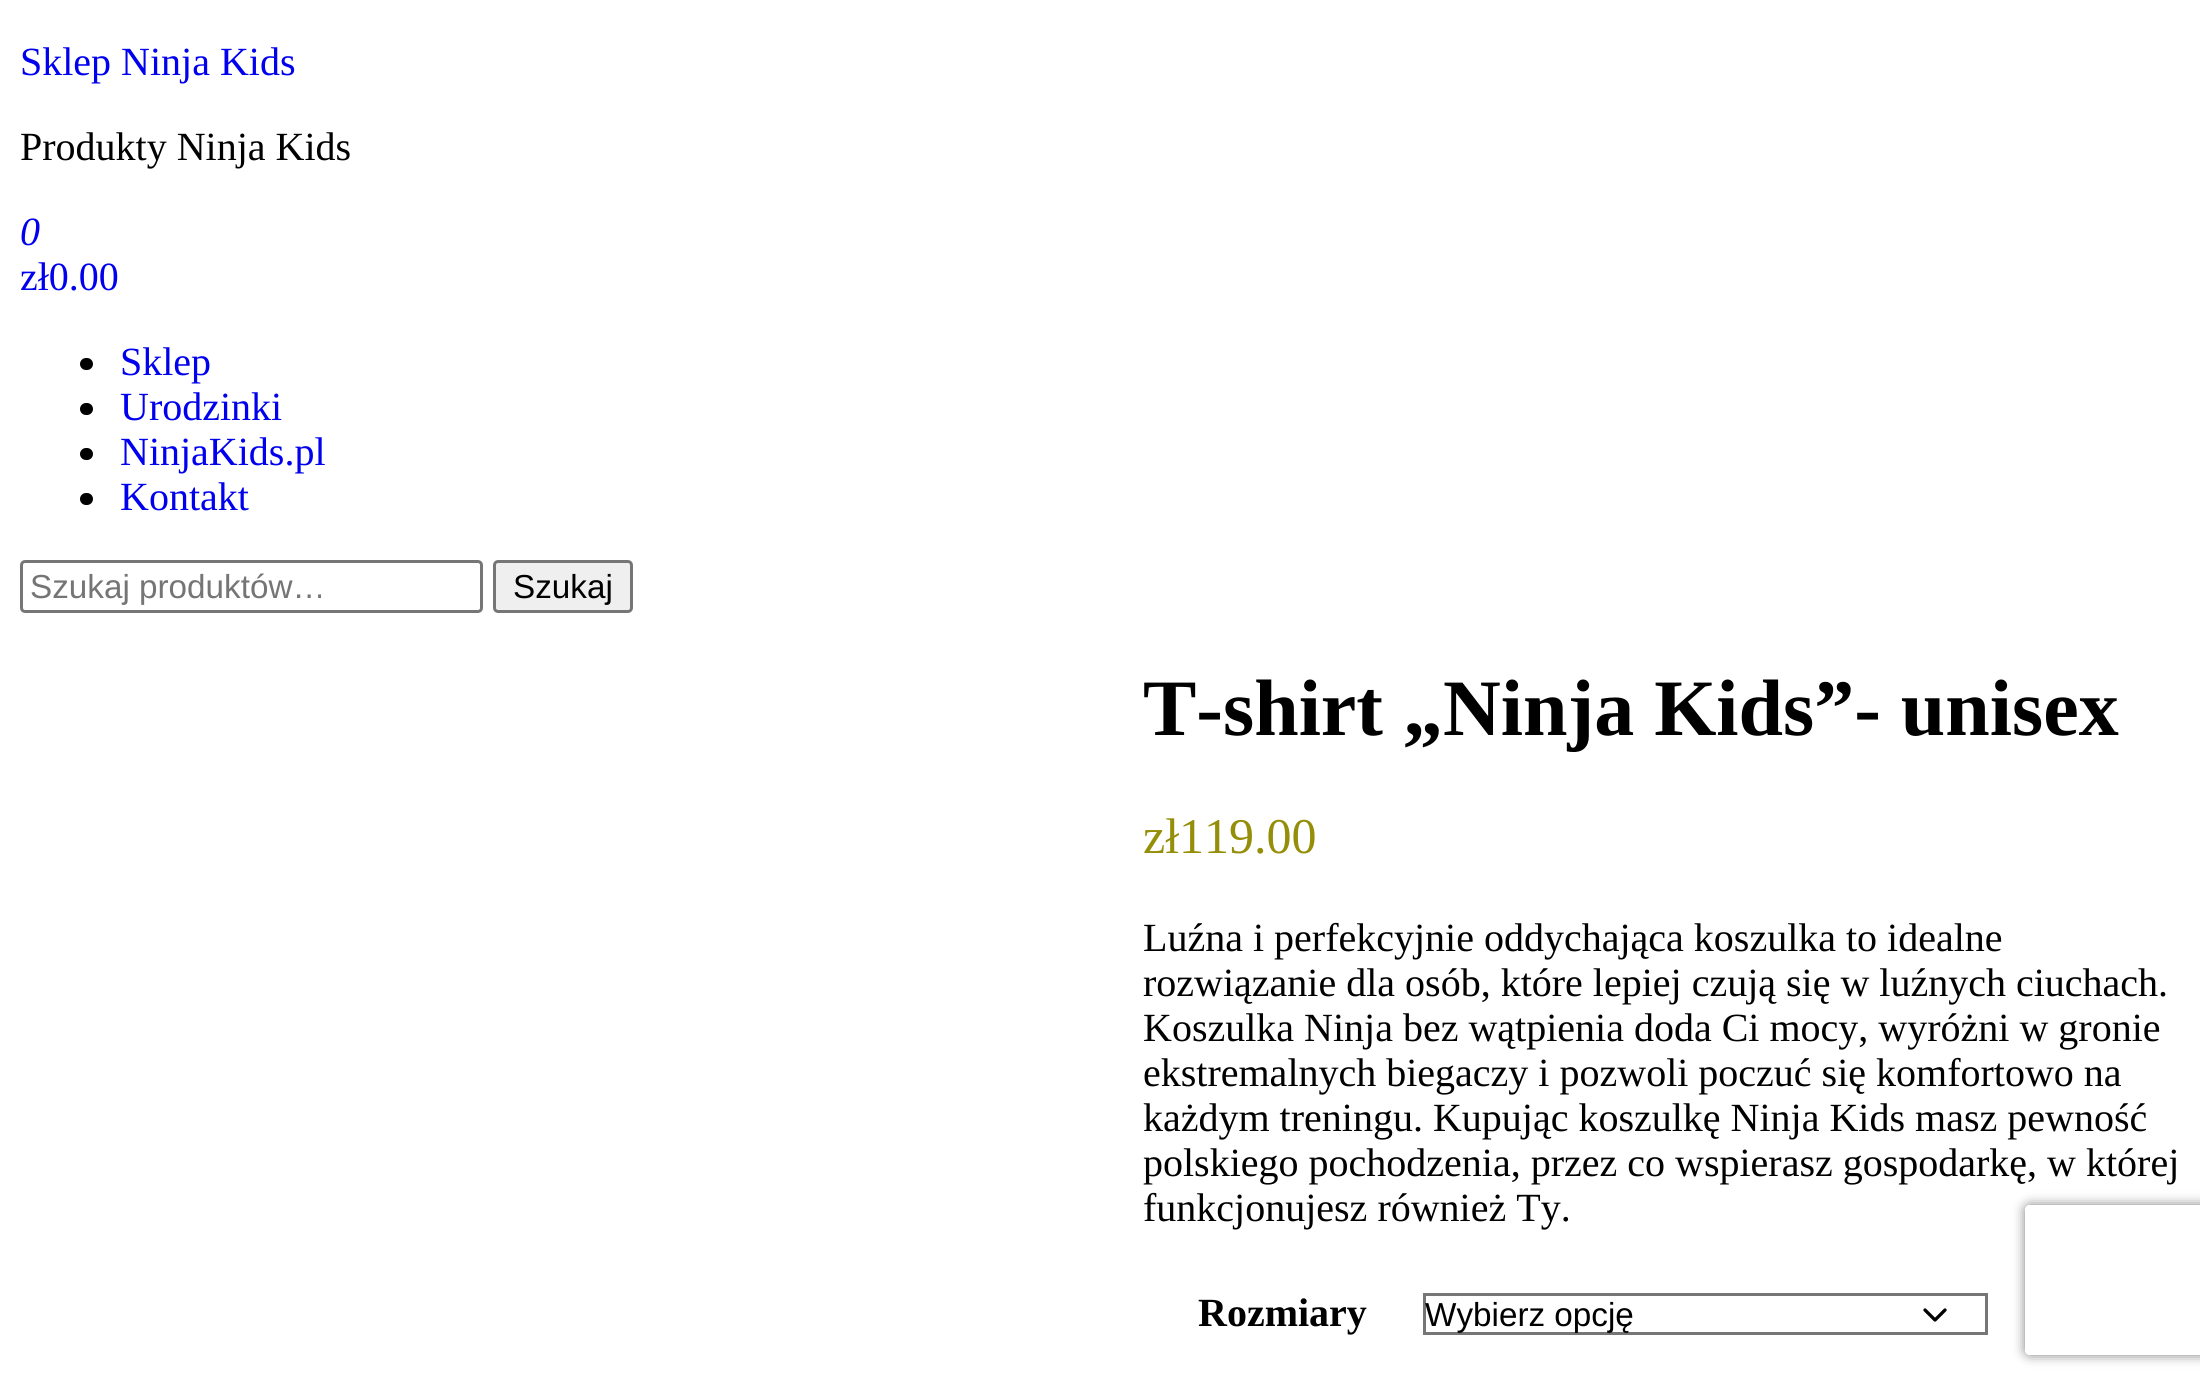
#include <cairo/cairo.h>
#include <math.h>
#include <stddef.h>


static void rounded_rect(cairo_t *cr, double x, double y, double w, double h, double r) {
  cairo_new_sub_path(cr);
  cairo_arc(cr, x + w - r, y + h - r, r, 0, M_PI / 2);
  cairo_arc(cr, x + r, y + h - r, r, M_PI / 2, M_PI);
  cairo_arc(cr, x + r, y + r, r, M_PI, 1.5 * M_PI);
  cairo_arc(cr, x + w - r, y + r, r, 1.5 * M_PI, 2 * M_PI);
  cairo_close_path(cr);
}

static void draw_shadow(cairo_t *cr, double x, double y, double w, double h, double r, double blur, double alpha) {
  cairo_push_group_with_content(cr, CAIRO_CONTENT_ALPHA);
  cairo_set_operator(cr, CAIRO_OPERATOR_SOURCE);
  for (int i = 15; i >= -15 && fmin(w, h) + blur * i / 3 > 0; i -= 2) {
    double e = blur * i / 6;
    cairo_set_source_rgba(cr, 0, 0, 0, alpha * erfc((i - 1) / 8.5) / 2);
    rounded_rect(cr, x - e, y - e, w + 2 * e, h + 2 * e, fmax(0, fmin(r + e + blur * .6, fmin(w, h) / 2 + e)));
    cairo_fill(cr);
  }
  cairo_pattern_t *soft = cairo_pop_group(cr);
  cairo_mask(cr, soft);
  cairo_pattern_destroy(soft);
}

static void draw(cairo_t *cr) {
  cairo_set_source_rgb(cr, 1, 1, 1);
  cairo_paint(cr);
  cairo_set_source_rgb(cr, 0, 0, 0);
  rounded_rect(cr, 80, 358, 13, 12, 6);
  cairo_fill(cr);
  rounded_rect(cr, 80, 403, 13, 12, 6);
  cairo_fill(cr);
  rounded_rect(cr, 80, 448, 13, 12, 6);
  cairo_fill(cr);
  rounded_rect(cr, 80, 493, 13, 12, 6);
  cairo_fill(cr);
  rounded_rect(cr, 21.5, 561.5, 460, 50, 3.5);
  cairo_set_source_rgb(cr, 118 / 255.0, 118 / 255.0, 118 / 255.0);
  cairo_set_line_width(cr, 3);
  cairo_stroke(cr);
  cairo_set_source_rgb(cr, 239 / 255.0, 239 / 255.0, 239 / 255.0);
  rounded_rect(cr, 494.5, 561.5, 137, 50, 3.5);
  cairo_fill_preserve(cr);
  cairo_set_source_rgb(cr, 118 / 255.0, 118 / 255.0, 118 / 255.0);
  cairo_stroke(cr);
  cairo_new_path(cr);
  cairo_move_to(cr, 1925, 1310);
  cairo_line_to(cr, 1935, 1320);
  cairo_line_to(cr, 1945, 1310);
  cairo_set_source_rgb(cr, 0, 0, 0);
  cairo_set_line_width(cr, 3.3);
  cairo_set_line_cap(cr, CAIRO_LINE_CAP_ROUND);
  cairo_set_line_join(cr, CAIRO_LINE_JOIN_ROUND);
  cairo_stroke(cr);
  cairo_rectangle(cr, 1424.5, 1294.5, 562, 39);
  cairo_set_source_rgb(cr, 118 / 255.0, 118 / 255.0, 118 / 255.0);
  cairo_set_line_width(cr, 3);
  cairo_set_line_cap(cr, CAIRO_LINE_CAP_BUTT);
  cairo_set_line_join(cr, CAIRO_LINE_JOIN_MITER);
  cairo_stroke(cr);
  cairo_save(cr);
  cairo_set_fill_rule(cr, CAIRO_FILL_RULE_EVEN_ODD);
  cairo_new_path(cr);
  cairo_move_to(cr, 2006, 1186);
  cairo_line_to(cr, 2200, 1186);
  cairo_line_to(cr, 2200, 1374);
  cairo_line_to(cr, 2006, 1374);
  cairo_close_path(cr);
  cairo_move_to(cr, 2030, 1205);
  cairo_line_to(cr, 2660, 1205);
  cairo_curve_to(cr, 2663, 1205, 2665, 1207, 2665, 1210);
  cairo_line_to(cr, 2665, 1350);
  cairo_curve_to(cr, 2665, 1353, 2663, 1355, 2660, 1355);
  cairo_line_to(cr, 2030, 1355);
  cairo_curve_to(cr, 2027, 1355, 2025, 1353, 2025, 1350);
  cairo_line_to(cr, 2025, 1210);
  cairo_curve_to(cr, 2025, 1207, 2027, 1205, 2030, 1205);
  cairo_close_path(cr);
  cairo_clip(cr);
  cairo_set_source_rgb(cr, 128 / 255.0, 128 / 255.0, 128 / 255.0);
  draw_shadow(cr, 2025, 1205, 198, 150, 5, 6, 1);
  cairo_restore(cr);
  cairo_select_font_face(cr, "Liberation Serif", CAIRO_FONT_SLANT_NORMAL, CAIRO_FONT_WEIGHT_NORMAL);
  cairo_set_font_size(cr, 40);
  cairo_set_source_rgb(cr, 0, 0, 238 / 255.0);
  cairo_move_to(cr, 20, 75);
  cairo_show_text(cr, "Sklep Ninja Kids");
  cairo_set_source_rgb(cr, 0, 0, 0);
  cairo_move_to(cr, 20, 160);
  cairo_show_text(cr, "Produkty Ninja Kids");
  cairo_select_font_face(cr, "Liberation Serif", CAIRO_FONT_SLANT_ITALIC, CAIRO_FONT_WEIGHT_NORMAL);
  cairo_set_source_rgb(cr, 0, 0, 238 / 255.0);
  cairo_move_to(cr, 20, 245);
  cairo_show_text(cr, "0");
  cairo_select_font_face(cr, "Liberation Serif", CAIRO_FONT_SLANT_NORMAL, CAIRO_FONT_WEIGHT_NORMAL);
  cairo_move_to(cr, 20, 290);
  cairo_show_text(cr, "zł0.00");
  cairo_move_to(cr, 120, 375);
  cairo_show_text(cr, "Sklep");
  cairo_move_to(cr, 120, 420);
  cairo_show_text(cr, "Urodzinki");
  cairo_move_to(cr, 120, 465);
  cairo_show_text(cr, "NinjaKids.pl");
  cairo_move_to(cr, 120, 510);
  cairo_show_text(cr, "Kontakt");
  cairo_select_font_face(cr, "Liberation Sans", CAIRO_FONT_SLANT_NORMAL, CAIRO_FONT_WEIGHT_NORMAL);
  cairo_set_font_size(cr, 33.25);
  cairo_set_source_rgb(cr, 117 / 255.0, 117 / 255.0, 117 / 255.0);
  cairo_move_to(cr, 30, 598);
  cairo_show_text(cr, "Szukaj produktów…");
  cairo_set_source_rgb(cr, 0, 0, 0);
  cairo_move_to(cr, 513, 598);
  cairo_show_text(cr, "Szukaj");
  cairo_select_font_face(cr, "Liberation Serif", CAIRO_FONT_SLANT_NORMAL, CAIRO_FONT_WEIGHT_BOLD);
  cairo_set_font_size(cr, 80);
  cairo_move_to(cr, 1143, 735);
  cairo_show_text(cr, "T-shirt „Ninja Kids”- unisex");
  cairo_select_font_face(cr, "Liberation Serif", CAIRO_FONT_SLANT_NORMAL, CAIRO_FONT_WEIGHT_NORMAL);
  cairo_set_font_size(cr, 50);
  cairo_set_source_rgb(cr, 149 / 255.0, 142 / 255.0, 9 / 255.0);
  cairo_move_to(cr, 1143, 853);
  cairo_show_text(cr, "zł119.00");
  cairo_set_font_size(cr, 40);
  cairo_set_source_rgb(cr, 0, 0, 0);
  cairo_move_to(cr, 1143, 951);
  cairo_show_text(cr, "Luźna i perfekcyjnie oddychająca koszulka to idealne");
  cairo_move_to(cr, 1143, 996);
  cairo_show_text(cr, "rozwiązanie dla osób, które lepiej czują się w luźnych ciuchach.");
  cairo_move_to(cr, 1143, 1041);
  cairo_show_text(cr, "Koszulka Ninja bez wątpienia doda Ci mocy, wyróżni w gronie");
  cairo_move_to(cr, 1143, 1086);
  cairo_show_text(cr, "ekstremalnych biegaczy i pozwoli poczuć się komfortowo na");
  cairo_move_to(cr, 1143, 1131);
  cairo_show_text(cr, "każdym treningu. Kupując koszulkę Ninja Kids masz pewność");
  cairo_move_to(cr, 1143, 1176);
  cairo_show_text(cr, "polskiego pochodzenia, przez co wspierasz gospodarkę, w której");
  cairo_move_to(cr, 1143, 1221);
  cairo_show_text(cr, "funkcjonujesz również Ty.");
  cairo_select_font_face(cr, "Liberation Serif", CAIRO_FONT_SLANT_NORMAL, CAIRO_FONT_WEIGHT_BOLD);
  cairo_move_to(cr, 1198, 1326);
  cairo_show_text(cr, "Rozmiary");
  cairo_select_font_face(cr, "Liberation Sans", CAIRO_FONT_SLANT_NORMAL, CAIRO_FONT_WEIGHT_NORMAL);
  cairo_set_font_size(cr, 33.25);
  cairo_move_to(cr, 1425, 1326);
  cairo_show_text(cr, "Wybierz opcję");
}

int main(void) {
  cairo_surface_t *surface = cairo_image_surface_create(CAIRO_FORMAT_RGB24, 2200, 1388);
  cairo_t *cr = cairo_create(surface);
  cairo_font_options_t *options = cairo_font_options_create();
  cairo_font_options_set_hint_metrics(options, CAIRO_HINT_METRICS_OFF);
  cairo_font_options_set_hint_style(options, CAIRO_HINT_STYLE_NONE);
  cairo_set_font_options(cr, options);
  cairo_set_miter_limit(cr, 4);
  draw(cr);
  cairo_surface_write_to_png(surface, "out.png");
  cairo_font_options_destroy(options);
  cairo_destroy(cr);
  cairo_surface_destroy(surface);
  return 0;
}
